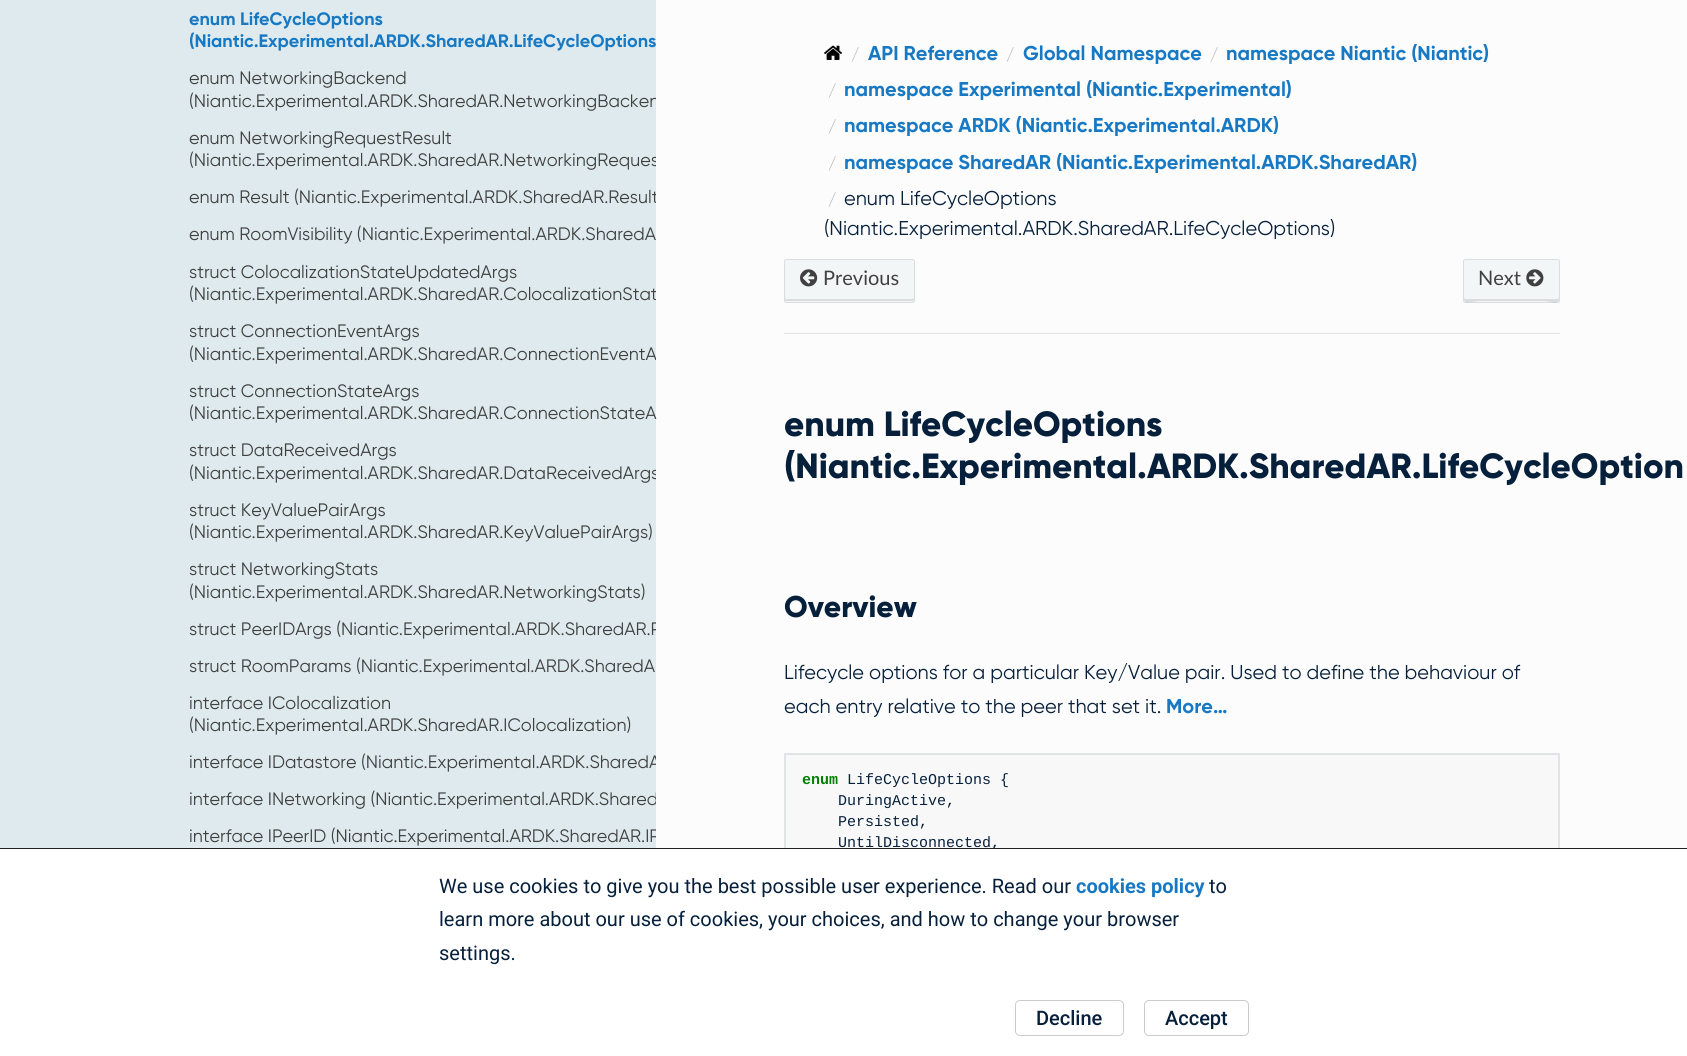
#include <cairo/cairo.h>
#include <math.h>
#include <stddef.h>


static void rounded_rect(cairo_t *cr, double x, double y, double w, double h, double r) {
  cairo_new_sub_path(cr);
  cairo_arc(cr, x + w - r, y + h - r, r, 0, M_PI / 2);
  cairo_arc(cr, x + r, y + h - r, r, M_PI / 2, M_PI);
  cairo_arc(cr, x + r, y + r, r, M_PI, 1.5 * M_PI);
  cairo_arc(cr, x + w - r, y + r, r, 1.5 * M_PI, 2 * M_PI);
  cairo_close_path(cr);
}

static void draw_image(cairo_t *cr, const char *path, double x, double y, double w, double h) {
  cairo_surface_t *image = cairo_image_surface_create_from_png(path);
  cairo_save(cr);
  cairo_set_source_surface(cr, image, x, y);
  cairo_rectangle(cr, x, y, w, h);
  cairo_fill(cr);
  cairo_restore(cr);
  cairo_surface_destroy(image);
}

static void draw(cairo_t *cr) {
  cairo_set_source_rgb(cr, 252 / 255.0, 252 / 255.0, 252 / 255.0);
  cairo_paint(cr);
  cairo_set_source_rgb(cr, 222 / 255.0, 234 / 255.0, 237 / 255.0);
  cairo_rectangle(cr, 0, 0, 656, 848);
  cairo_fill(cr);
  draw_image(cr, "images/1.png", 824, 45, 18, 15);
  cairo_set_source_rgb(cr, 243 / 255.0, 246 / 255.0, 246 / 255.0);
  rounded_rect(cr, 784, 259, 131, 44, 2.5);
  cairo_fill(cr);
  cairo_set_source_rgb(cr, 219 / 255.0, 221 / 255.0, 221 / 255.0);
  cairo_new_path(cr);
  cairo_move_to(cr, 785, 298);
  cairo_curve_to(cr, 785, 299, 785, 300, 786, 301);
  cairo_line_to(cr, 913, 301);
  cairo_curve_to(cr, 914, 301, 914, 299, 914, 298);
  cairo_line_to(cr, 912, 299);
  cairo_line_to(cr, 786, 299);
  cairo_close_path(cr);
  cairo_fill(cr);
  rounded_rect(cr, 784.5, 259.5, 130, 43, 2);
  cairo_set_line_width(cr, 1);
  cairo_stroke(cr);
  draw_image(cr, "images/2.png", 800, 269, 18, 18);
  cairo_set_source_rgb(cr, 243 / 255.0, 246 / 255.0, 246 / 255.0);
  rounded_rect(cr, 1463, 259, 97, 44, 2.5);
  cairo_fill(cr);
  cairo_set_source_rgb(cr, 219 / 255.0, 221 / 255.0, 221 / 255.0);
  cairo_new_path(cr);
  cairo_move_to(cr, 1464, 298);
  cairo_curve_to(cr, 1464, 306, 1471, 301, 1480, 301);
  cairo_line_to(cr, 1542, 301);
  cairo_curve_to(cr, 1552, 301, 1559, 306, 1559, 298);
  cairo_line_to(cr, 1558, 299);
  cairo_line_to(cr, 1465, 299);
  cairo_close_path(cr);
  cairo_fill(cr);
  rounded_rect(cr, 1463.5, 259.5, 96, 43, 2);
  cairo_set_source_rgba(cr, 0, 0, 0, 0.1);
  cairo_stroke(cr);
  draw_image(cr, "images/3.png", 1526, 269, 18, 18);
  cairo_set_source_rgb(cr, 225 / 255.0, 228 / 255.0, 229 / 255.0);
  cairo_rectangle(cr, 784, 333, 776, 1);
  cairo_fill(cr);
  cairo_set_source_rgb(cr, 248 / 255.0, 248 / 255.0, 248 / 255.0);
  cairo_rectangle(cr, 786, 755, 772, 93);
  cairo_fill(cr);
  cairo_rectangle(cr, 784.5, 753.5, 775, 139);
  cairo_set_source_rgb(cr, 225 / 255.0, 228 / 255.0, 229 / 255.0);
  cairo_stroke(cr);
  cairo_rectangle(cr, 785.5, 754.5, 773, 136);
  cairo_stroke(cr);
  cairo_select_font_face(cr, "Gilroy", CAIRO_FONT_SLANT_NORMAL, CAIRO_FONT_WEIGHT_BOLD);
  cairo_set_font_size(cr, 18);
  cairo_set_source_rgb(cr, 23 / 255.0, 121 / 255.0, 196 / 255.0);
  cairo_move_to(cr, 189, 25);
  cairo_show_text(cr, "enum LifeCycleOptions");
  cairo_move_to(cr, 189, 47);
  cairo_show_text(cr, "(Niantic.Experimental.ARDK.SharedAR.LifeCycleOptions");
  cairo_select_font_face(cr, "gilroy", CAIRO_FONT_SLANT_NORMAL, CAIRO_FONT_WEIGHT_NORMAL);
  cairo_set_source_rgb(cr, 64 / 255.0, 64 / 255.0, 64 / 255.0);
  cairo_move_to(cr, 189, 84);
  cairo_show_text(cr, "enum NetworkingBackend");
  cairo_save(cr);
  cairo_rectangle(cr, 0, 0, 656, 1016);
  cairo_clip(cr);
  cairo_move_to(cr, 189, 107);
  cairo_show_text(cr, "(Niantic.Experimental.ARDK.SharedAR.NetworkingBacken");
  cairo_restore(cr);
  cairo_move_to(cr, 189, 144);
  cairo_show_text(cr, "enum NetworkingRequestResult");
  cairo_save(cr);
  cairo_rectangle(cr, 0, 0, 656, 1016);
  cairo_clip(cr);
  cairo_move_to(cr, 189, 166);
  cairo_show_text(cr, "(Niantic.Experimental.ARDK.SharedAR.NetworkingReques");
  cairo_move_to(cr, 189, 203);
  cairo_show_text(cr, "enum Result (Niantic.Experimental.ARDK.SharedAR.Result");
  cairo_restore(cr);
  cairo_move_to(cr, 189, 240);
  cairo_show_text(cr, "enum RoomVisibility (Niantic.Experimental.ARDK.SharedA");
  cairo_move_to(cr, 189, 278);
  cairo_show_text(cr, "struct ColocalizationStateUpdatedArgs");
  cairo_save(cr);
  cairo_rectangle(cr, 0, 0, 656, 1016);
  cairo_clip(cr);
  cairo_move_to(cr, 189, 300);
  cairo_show_text(cr, "(Niantic.Experimental.ARDK.SharedAR.ColocalizationStat");
  cairo_restore(cr);
  cairo_move_to(cr, 189, 337);
  cairo_show_text(cr, "struct ConnectionEventArgs");
  cairo_save(cr);
  cairo_rectangle(cr, 0, 0, 656, 1016);
  cairo_clip(cr);
  cairo_move_to(cr, 189, 360);
  cairo_show_text(cr, "(Niantic.Experimental.ARDK.SharedAR.ConnectionEventA");
  cairo_restore(cr);
  cairo_move_to(cr, 189, 397);
  cairo_show_text(cr, "struct ConnectionStateArgs");
  cairo_move_to(cr, 189, 419);
  cairo_show_text(cr, "(Niantic.Experimental.ARDK.SharedAR.ConnectionStateA");
  cairo_move_to(cr, 189, 456);
  cairo_show_text(cr, "struct DataReceivedArgs");
  cairo_save(cr);
  cairo_rectangle(cr, 0, 0, 656, 1016);
  cairo_clip(cr);
  cairo_move_to(cr, 189, 479);
  cairo_show_text(cr, "(Niantic.Experimental.ARDK.SharedAR.DataReceivedArgs");
  cairo_restore(cr);
  cairo_move_to(cr, 189, 516);
  cairo_show_text(cr, "struct KeyValuePairArgs");
  cairo_move_to(cr, 189, 538);
  cairo_show_text(cr, "(Niantic.Experimental.ARDK.SharedAR.KeyValuePairArgs)");
  cairo_move_to(cr, 189, 575);
  cairo_show_text(cr, "struct NetworkingStats");
  cairo_move_to(cr, 189, 598);
  cairo_show_text(cr, "(Niantic.Experimental.ARDK.SharedAR.NetworkingStats)");
  cairo_save(cr);
  cairo_rectangle(cr, 0, 0, 656, 1016);
  cairo_clip(cr);
  cairo_move_to(cr, 189, 635);
  cairo_show_text(cr, "struct PeerIDArgs (Niantic.Experimental.ARDK.SharedAR.P");
  cairo_restore(cr);
  cairo_move_to(cr, 189, 672);
  cairo_show_text(cr, "struct RoomParams (Niantic.Experimental.ARDK.SharedA");
  cairo_move_to(cr, 189, 709);
  cairo_show_text(cr, "interface IColocalization");
  cairo_move_to(cr, 189, 731);
  cairo_show_text(cr, "(Niantic.Experimental.ARDK.SharedAR.IColocalization)");
  cairo_save(cr);
  cairo_rectangle(cr, 0, 0, 656, 1016);
  cairo_clip(cr);
  cairo_move_to(cr, 189, 768);
  cairo_show_text(cr, "interface IDatastore (Niantic.Experimental.ARDK.SharedA");
  cairo_move_to(cr, 189, 805);
  cairo_show_text(cr, "interface INetworking (Niantic.Experimental.ARDK.Shared");
  cairo_move_to(cr, 189, 842);
  cairo_show_text(cr, "interface IPeerID (Niantic.Experimental.ARDK.SharedAR.IP");
  cairo_restore(cr);
  cairo_set_font_size(cr, 16);
  cairo_set_source_rgb(cr, 187 / 255.0, 187 / 255.0, 187 / 255.0);
  cairo_move_to(cr, 851, 60);
  cairo_show_text(cr, "/");
  cairo_select_font_face(cr, "Gilroy", CAIRO_FONT_SLANT_NORMAL, CAIRO_FONT_WEIGHT_BOLD);
  cairo_set_font_size(cr, 20);
  cairo_set_source_rgb(cr, 23 / 255.0, 121 / 255.0, 196 / 255.0);
  cairo_move_to(cr, 868, 60);
  cairo_show_text(cr, "API Reference");
  cairo_select_font_face(cr, "gilroy", CAIRO_FONT_SLANT_NORMAL, CAIRO_FONT_WEIGHT_NORMAL);
  cairo_set_font_size(cr, 16);
  cairo_set_source_rgb(cr, 187 / 255.0, 187 / 255.0, 187 / 255.0);
  cairo_move_to(cr, 1006, 60);
  cairo_show_text(cr, "/");
  cairo_select_font_face(cr, "Gilroy", CAIRO_FONT_SLANT_NORMAL, CAIRO_FONT_WEIGHT_BOLD);
  cairo_set_font_size(cr, 20);
  cairo_set_source_rgb(cr, 23 / 255.0, 121 / 255.0, 196 / 255.0);
  cairo_move_to(cr, 1023, 60);
  cairo_show_text(cr, "Global Namespace");
  cairo_select_font_face(cr, "gilroy", CAIRO_FONT_SLANT_NORMAL, CAIRO_FONT_WEIGHT_NORMAL);
  cairo_set_font_size(cr, 16);
  cairo_set_source_rgb(cr, 187 / 255.0, 187 / 255.0, 187 / 255.0);
  cairo_move_to(cr, 1210, 60);
  cairo_show_text(cr, "/");
  cairo_select_font_face(cr, "Gilroy", CAIRO_FONT_SLANT_NORMAL, CAIRO_FONT_WEIGHT_BOLD);
  cairo_set_font_size(cr, 20);
  cairo_set_source_rgb(cr, 23 / 255.0, 121 / 255.0, 196 / 255.0);
  cairo_move_to(cr, 1226, 60);
  cairo_show_text(cr, "namespace Niantic (Niantic)");
  cairo_select_font_face(cr, "gilroy", CAIRO_FONT_SLANT_NORMAL, CAIRO_FONT_WEIGHT_NORMAL);
  cairo_set_font_size(cr, 16);
  cairo_set_source_rgb(cr, 187 / 255.0, 187 / 255.0, 187 / 255.0);
  cairo_move_to(cr, 828, 96);
  cairo_show_text(cr, "/");
  cairo_select_font_face(cr, "Gilroy", CAIRO_FONT_SLANT_NORMAL, CAIRO_FONT_WEIGHT_BOLD);
  cairo_set_font_size(cr, 20);
  cairo_set_source_rgb(cr, 23 / 255.0, 121 / 255.0, 196 / 255.0);
  cairo_move_to(cr, 844, 96);
  cairo_show_text(cr, "namespace Experimental (Niantic.Experimental)");
  cairo_select_font_face(cr, "gilroy", CAIRO_FONT_SLANT_NORMAL, CAIRO_FONT_WEIGHT_NORMAL);
  cairo_set_font_size(cr, 16);
  cairo_set_source_rgb(cr, 187 / 255.0, 187 / 255.0, 187 / 255.0);
  cairo_move_to(cr, 828, 132);
  cairo_show_text(cr, "/");
  cairo_select_font_face(cr, "Gilroy", CAIRO_FONT_SLANT_NORMAL, CAIRO_FONT_WEIGHT_BOLD);
  cairo_set_font_size(cr, 20);
  cairo_set_source_rgb(cr, 23 / 255.0, 121 / 255.0, 196 / 255.0);
  cairo_move_to(cr, 844, 132);
  cairo_show_text(cr, "namespace ARDK (Niantic.Experimental.ARDK)");
  cairo_select_font_face(cr, "gilroy", CAIRO_FONT_SLANT_NORMAL, CAIRO_FONT_WEIGHT_NORMAL);
  cairo_set_font_size(cr, 16);
  cairo_set_source_rgb(cr, 187 / 255.0, 187 / 255.0, 187 / 255.0);
  cairo_move_to(cr, 828, 169);
  cairo_show_text(cr, "/");
  cairo_select_font_face(cr, "Gilroy", CAIRO_FONT_SLANT_NORMAL, CAIRO_FONT_WEIGHT_BOLD);
  cairo_set_font_size(cr, 20);
  cairo_set_source_rgb(cr, 23 / 255.0, 121 / 255.0, 196 / 255.0);
  cairo_move_to(cr, 844, 169);
  cairo_show_text(cr, "namespace SharedAR (Niantic.Experimental.ARDK.SharedAR)");
  cairo_select_font_face(cr, "gilroy", CAIRO_FONT_SLANT_NORMAL, CAIRO_FONT_WEIGHT_NORMAL);
  cairo_set_font_size(cr, 16);
  cairo_set_source_rgb(cr, 187 / 255.0, 187 / 255.0, 187 / 255.0);
  cairo_move_to(cr, 828, 205);
  cairo_show_text(cr, "/");
  cairo_set_font_size(cr, 20);
  cairo_set_source_rgb(cr, 6 / 255.0, 32 / 255.0, 60 / 255.0);
  cairo_move_to(cr, 844, 205);
  cairo_show_text(cr, "enum LifeCycleOptions");
  cairo_move_to(cr, 824, 235);
  cairo_show_text(cr, "(Niantic.Experimental.ARDK.SharedAR.LifeCycleOptions)");
  cairo_select_font_face(cr, "Lato", CAIRO_FONT_SLANT_NORMAL, CAIRO_FONT_WEIGHT_NORMAL);
  cairo_set_source_rgb(cr, 64 / 255.0, 64 / 255.0, 64 / 255.0);
  cairo_move_to(cr, 823, 285);
  cairo_show_text(cr, "Previous");
  cairo_move_to(cr, 1478, 285);
  cairo_show_text(cr, "Next");
  cairo_select_font_face(cr, "Gilroy ExtraBold", CAIRO_FONT_SLANT_NORMAL, CAIRO_FONT_WEIGHT_NORMAL);
  cairo_set_font_size(cr, 35);
  cairo_set_source_rgb(cr, 6 / 255.0, 32 / 255.0, 60 / 255.0);
  cairo_move_to(cr, 784, 436);
  cairo_show_text(cr, "enum LifeCycleOptions");
  cairo_move_to(cr, 784, 478);
  cairo_show_text(cr, "(Niantic.Experimental.ARDK.SharedAR.LifeCycleOption");
  cairo_set_font_size(cr, 30);
  cairo_move_to(cr, 784, 617);
  cairo_show_text(cr, "Overview");
  cairo_select_font_face(cr, "gilroy", CAIRO_FONT_SLANT_NORMAL, CAIRO_FONT_WEIGHT_NORMAL);
  cairo_set_font_size(cr, 20);
  cairo_move_to(cr, 784, 679);
  cairo_show_text(cr, "Lifecycle options for a particular Key/Value pair. Used to define the behaviour of");
  cairo_move_to(cr, 784, 713);
  cairo_show_text(cr, "each entry relative to the peer that set it.");
  cairo_select_font_face(cr, "Gilroy", CAIRO_FONT_SLANT_NORMAL, CAIRO_FONT_WEIGHT_BOLD);
  cairo_set_source_rgb(cr, 23 / 255.0, 121 / 255.0, 196 / 255.0);
  cairo_move_to(cr, 1166, 713);
  cairo_show_text(cr, "More…");
  cairo_select_font_face(cr, "Liberation Mono", CAIRO_FONT_SLANT_NORMAL, CAIRO_FONT_WEIGHT_BOLD);
  cairo_set_font_size(cr, 15);
  cairo_set_source_rgb(cr, 0, 128 / 255.0, 0);
  cairo_move_to(cr, 802, 784);
  cairo_show_text(cr, "enum");
  cairo_select_font_face(cr, "Liberation Mono", CAIRO_FONT_SLANT_NORMAL, CAIRO_FONT_WEIGHT_NORMAL);
  cairo_set_source_rgb(cr, 6 / 255.0, 32 / 255.0, 60 / 255.0);
  cairo_move_to(cr, 847, 784);
  cairo_show_text(cr, "LifeCycleOptions {");
  cairo_move_to(cr, 838, 805);
  cairo_show_text(cr, "DuringActive,");
  cairo_move_to(cr, 838, 826);
  cairo_show_text(cr, "Persisted,");
  cairo_move_to(cr, 838, 847);
  cairo_show_text(cr, "UntilDisconnected,");
  cairo_set_source_rgb(cr, 1, 1, 1);
  cairo_rectangle(cr, 0, 849, 1687, 207);
  cairo_fill(cr);
  cairo_set_source_rgb(cr, 33 / 255.0, 33 / 255.0, 33 / 255.0);
  cairo_rectangle(cr, 0, 848, 1687, 1);
  cairo_fill(cr);
  cairo_select_font_face(cr, "Roboto", CAIRO_FONT_SLANT_NORMAL, CAIRO_FONT_WEIGHT_NORMAL);
  cairo_set_font_size(cr, 20);
  cairo_set_source_rgb(cr, 6 / 255.0, 32 / 255.0, 60 / 255.0);
  cairo_move_to(cr, 439, 893);
  cairo_show_text(cr, "We use cookies to give you the best possible user experience. Read our");
  cairo_select_font_face(cr, "Roboto", CAIRO_FONT_SLANT_NORMAL, CAIRO_FONT_WEIGHT_BOLD);
  cairo_set_source_rgb(cr, 23 / 255.0, 121 / 255.0, 196 / 255.0);
  cairo_move_to(cr, 1076, 893);
  cairo_show_text(cr, "cookies policy");
  cairo_select_font_face(cr, "Roboto", CAIRO_FONT_SLANT_NORMAL, CAIRO_FONT_WEIGHT_NORMAL);
  cairo_set_source_rgb(cr, 6 / 255.0, 32 / 255.0, 60 / 255.0);
  cairo_move_to(cr, 1209, 893);
  cairo_show_text(cr, "to");
  cairo_move_to(cr, 439, 926);
  cairo_show_text(cr, "learn more about our use of cookies, your choices, and how to change your browser");
  cairo_move_to(cr, 439, 960);
  cairo_show_text(cr, "settings.");
  rounded_rect(cr, 1015.5, 1000.5, 108, 35, 4.5);
  cairo_set_source_rgb(cr, 204 / 255.0, 204 / 255.0, 204 / 255.0);
  cairo_stroke(cr);
  cairo_select_font_face(cr, "Roboto Medium", CAIRO_FONT_SLANT_NORMAL, CAIRO_FONT_WEIGHT_NORMAL);
  cairo_set_source_rgb(cr, 6 / 255.0, 32 / 255.0, 60 / 255.0);
  cairo_move_to(cr, 1036, 1025);
  cairo_show_text(cr, "Decline");
  rounded_rect(cr, 1144.5, 1000.5, 104, 35, 4.5);
  cairo_set_source_rgb(cr, 204 / 255.0, 204 / 255.0, 204 / 255.0);
  cairo_stroke(cr);
  cairo_set_source_rgb(cr, 6 / 255.0, 32 / 255.0, 60 / 255.0);
  cairo_move_to(cr, 1165, 1025);
  cairo_show_text(cr, "Accept");
}

int main(void) {
  cairo_surface_t *surface = cairo_image_surface_create(CAIRO_FORMAT_RGB24, 1687, 1056);
  cairo_t *cr = cairo_create(surface);
  cairo_font_options_t *options = cairo_font_options_create();
  cairo_font_options_set_hint_metrics(options, CAIRO_HINT_METRICS_OFF);
  cairo_font_options_set_hint_style(options, CAIRO_HINT_STYLE_NONE);
  cairo_set_font_options(cr, options);
  cairo_set_miter_limit(cr, 4);
  draw(cr);
  cairo_surface_write_to_png(surface, "out.png");
  cairo_font_options_destroy(options);
  cairo_destroy(cr);
  cairo_surface_destroy(surface);
  return 0;
}
